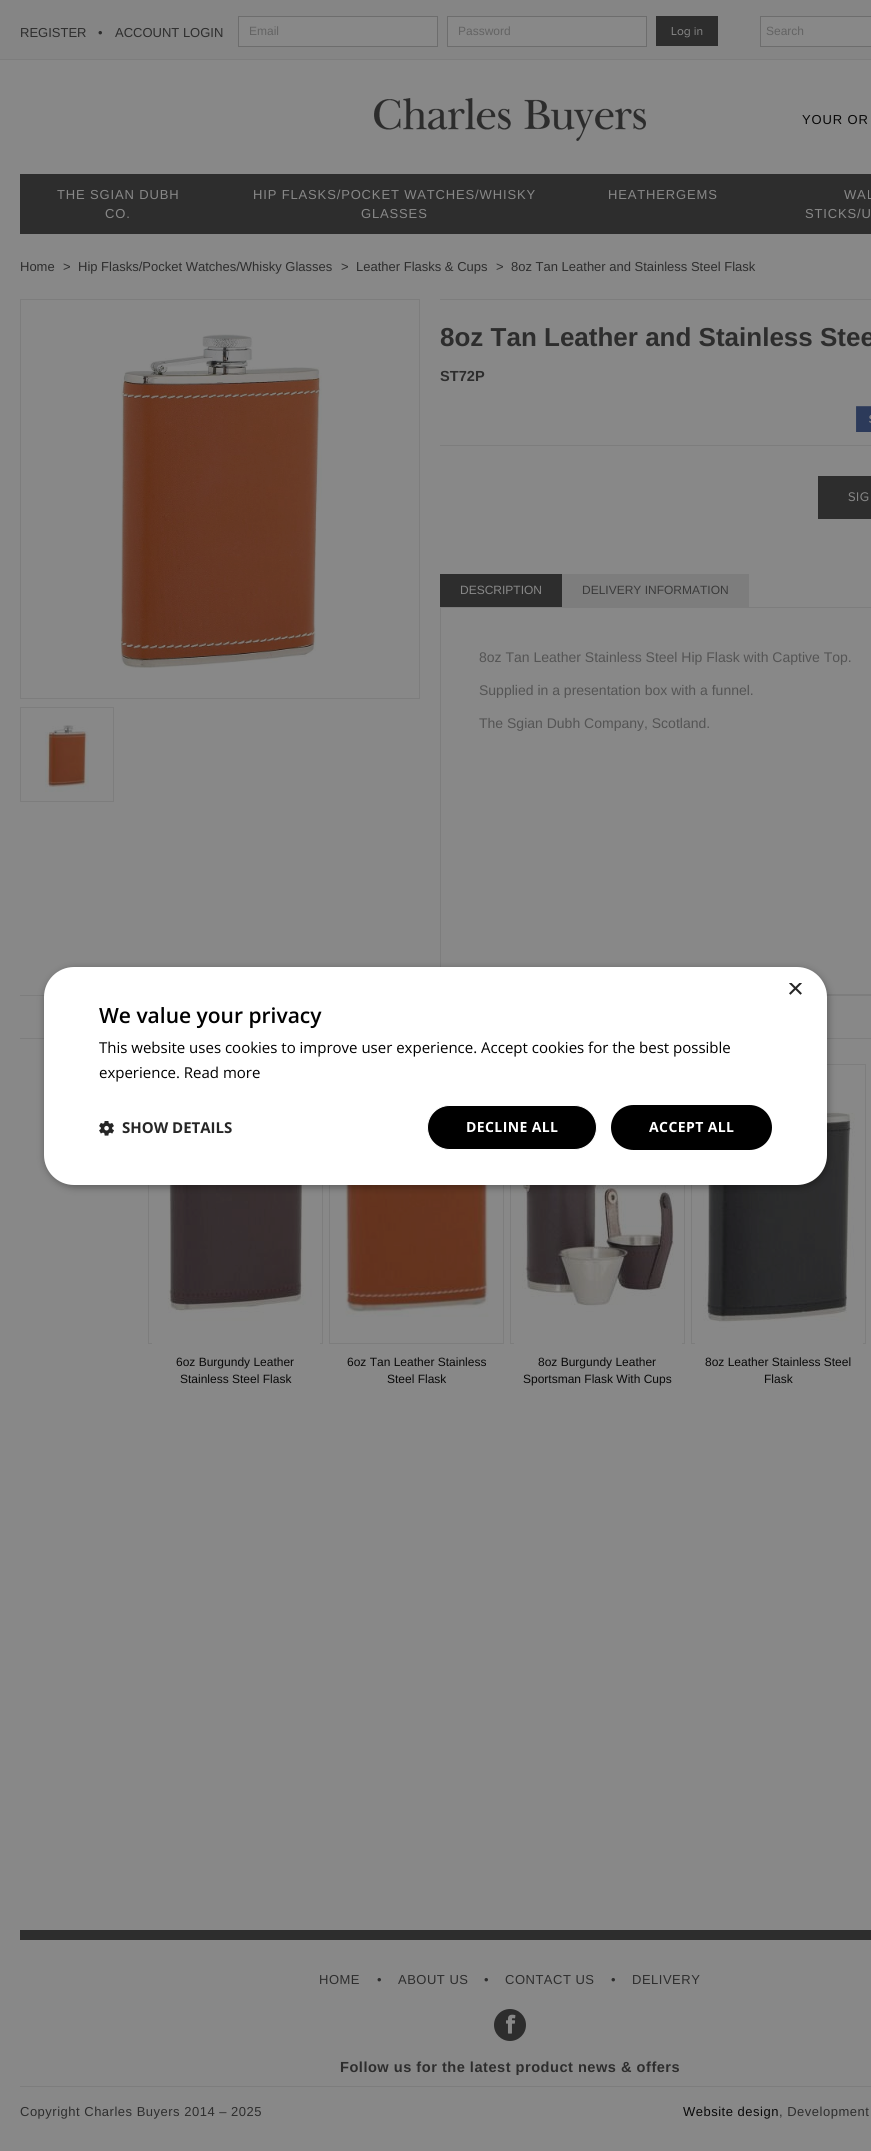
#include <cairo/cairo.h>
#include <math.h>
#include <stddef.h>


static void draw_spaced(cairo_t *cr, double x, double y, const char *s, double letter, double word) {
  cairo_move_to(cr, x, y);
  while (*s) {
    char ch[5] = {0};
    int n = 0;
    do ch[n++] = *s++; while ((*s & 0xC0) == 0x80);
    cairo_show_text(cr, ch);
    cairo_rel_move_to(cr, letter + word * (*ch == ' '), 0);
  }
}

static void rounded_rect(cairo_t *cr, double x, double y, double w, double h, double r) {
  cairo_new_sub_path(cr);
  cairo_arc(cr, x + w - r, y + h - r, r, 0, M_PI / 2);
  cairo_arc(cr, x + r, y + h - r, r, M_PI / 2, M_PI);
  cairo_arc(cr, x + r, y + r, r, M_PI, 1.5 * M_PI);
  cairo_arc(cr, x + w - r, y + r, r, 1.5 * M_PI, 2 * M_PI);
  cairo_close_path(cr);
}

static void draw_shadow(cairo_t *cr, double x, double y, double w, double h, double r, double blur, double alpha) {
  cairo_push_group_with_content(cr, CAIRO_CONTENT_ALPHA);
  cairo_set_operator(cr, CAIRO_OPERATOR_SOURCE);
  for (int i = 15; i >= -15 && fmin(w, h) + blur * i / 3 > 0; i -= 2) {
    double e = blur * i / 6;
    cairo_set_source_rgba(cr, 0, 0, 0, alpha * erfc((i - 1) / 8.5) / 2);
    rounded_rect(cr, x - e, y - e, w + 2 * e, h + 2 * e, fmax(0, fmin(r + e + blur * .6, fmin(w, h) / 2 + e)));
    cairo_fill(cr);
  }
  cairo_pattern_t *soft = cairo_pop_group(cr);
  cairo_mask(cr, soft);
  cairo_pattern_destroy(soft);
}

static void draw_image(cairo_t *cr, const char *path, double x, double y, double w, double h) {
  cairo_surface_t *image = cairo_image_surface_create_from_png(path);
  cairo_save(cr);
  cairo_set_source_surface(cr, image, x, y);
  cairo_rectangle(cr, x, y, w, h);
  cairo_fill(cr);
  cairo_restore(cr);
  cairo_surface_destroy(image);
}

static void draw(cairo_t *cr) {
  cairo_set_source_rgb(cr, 136 / 255.0, 136 / 255.0, 136 / 255.0);
  cairo_paint(cr);
  cairo_set_source_rgb(cr, 133 / 255.0, 133 / 255.0, 133 / 255.0);
  cairo_rectangle(cr, 0, 0, 871, 59);
  cairo_fill(cr);
  cairo_set_source_rgb(cr, 125 / 255.0, 125 / 255.0, 125 / 255.0);
  cairo_rectangle(cr, 0, 59, 871, 1);
  cairo_fill(cr);
  cairo_set_source_rgb(cr, 136 / 255.0, 136 / 255.0, 136 / 255.0);
  cairo_rectangle(cr, 238.5, 16.5, 199, 30);
  cairo_fill_preserve(cr);
  cairo_set_source_rgb(cr, 109 / 255.0, 109 / 255.0, 109 / 255.0);
  cairo_set_line_width(cr, 1);
  cairo_stroke(cr);
  cairo_set_source_rgb(cr, 136 / 255.0, 136 / 255.0, 136 / 255.0);
  cairo_rectangle(cr, 447.5, 16.5, 199, 30);
  cairo_fill_preserve(cr);
  cairo_set_source_rgb(cr, 109 / 255.0, 109 / 255.0, 109 / 255.0);
  cairo_stroke(cr);
  cairo_set_source_rgb(cr, 45 / 255.0, 45 / 255.0, 45 / 255.0);
  cairo_rectangle(cr, 656, 16, 62, 30);
  cairo_fill(cr);
  cairo_set_source_rgb(cr, 136 / 255.0, 136 / 255.0, 136 / 255.0);
  cairo_rectangle(cr, 760.5, 16.5, 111, 30);
  cairo_fill_preserve(cr);
  cairo_set_source_rgb(cr, 109 / 255.0, 109 / 255.0, 109 / 255.0);
  cairo_stroke(cr);
  draw_image(cr, "images/1.png", 374, 98, 272, 43);
  cairo_set_source_rgb(cr, 45 / 255.0, 45 / 255.0, 45 / 255.0);
  cairo_rectangle(cr, 20, 174, 851, 60);
  cairo_fill(cr);
  cairo_rectangle(cr, 20.5, 299.5, 399, 399);
  cairo_set_source_rgb(cr, 125 / 255.0, 125 / 255.0, 125 / 255.0);
  cairo_stroke(cr);
  draw_image(cr, "images/2.png", 121, 334, 201, 334);
  cairo_rectangle(cr, 20.5, 707.5, 93, 94);
  cairo_stroke(cr);
  draw_image(cr, "images/3.png", 45, 725, 44, 67);
  cairo_rectangle(cr, 440, 299, 431, 1);
  cairo_fill(cr);
  cairo_rectangle(cr, 440, 445, 431, 1);
  cairo_fill(cr);
  draw_image(cr, "images/4.png", 856, 406, 15, 26);
  cairo_set_source_rgb(cr, 45 / 255.0, 45 / 255.0, 45 / 255.0);
  cairo_rectangle(cr, 818, 476, 53, 43);
  cairo_fill(cr);
  cairo_rectangle(cr, 440, 574, 122, 33);
  cairo_fill(cr);
  cairo_set_source_rgb(cr, 125 / 255.0, 125 / 255.0, 125 / 255.0);
  cairo_rectangle(cr, 562, 574, 187, 33);
  cairo_fill(cr);
  cairo_rectangle(cr, 440.5, 607.5, 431, 387);
  cairo_stroke(cr);
  cairo_rectangle(cr, 20, 995, 851, 1);
  cairo_fill(cr);
  cairo_rectangle(cr, 20, 1038, 851, 1);
  cairo_fill(cr);
  cairo_rectangle(cr, 148.5, 1064.5, 174, 279);
  cairo_stroke(cr);
  draw_image(cr, "images/5.png", 152, 1185, 168, 159);
  cairo_rectangle(cr, 329.5, 1064.5, 174, 279);
  cairo_stroke(cr);
  draw_image(cr, "images/6.png", 345, 1185, 144, 132);
  cairo_rectangle(cr, 510.5, 1064.5, 174, 279);
  cairo_stroke(cr);
  draw_image(cr, "images/7.png", 514, 1185, 168, 159);
  cairo_rectangle(cr, 691.5, 1064.5, 174, 279);
  cairo_stroke(cr);
  draw_image(cr, "images/8.png", 695, 1089, 168, 255);
  cairo_set_source_rgb(cr, 45 / 255.0, 45 / 255.0, 45 / 255.0);
  cairo_rectangle(cr, 20, 1930, 851, 10);
  cairo_fill(cr);
  cairo_set_source_rgb(cr, 125 / 255.0, 125 / 255.0, 125 / 255.0);
  cairo_rectangle(cr, 20, 2086, 851, 1);
  cairo_fill(cr);
  cairo_set_source_rgb(cr, 45 / 255.0, 45 / 255.0, 45 / 255.0);
  cairo_arc(cr, 510, 2025, 16, 0, 2 * M_PI);
  cairo_fill(cr);
  draw_image(cr, "images/9.png", 506, 2014, 10, 20);
  cairo_set_source_rgb(cr, 0, 0, 0);
  draw_shadow(cr, 45, 969, 783, 218, 30, 4, 0.35);
  cairo_set_source_rgb(cr, 1, 1, 1);
  rounded_rect(cr, 44, 967, 783, 218, 30);
  cairo_fill(cr);
  draw_image(cr, "images/10.png", 99, 1121, 15, 15);
  cairo_set_source_rgb(cr, 0, 0, 0);
  rounded_rect(cr, 427.5, 1105.5, 169, 44, 22);
  cairo_fill_preserve(cr);
  cairo_set_source_rgb(cr, 1, 1, 1);
  cairo_stroke(cr);
  cairo_set_source_rgb(cr, 0, 0, 0);
  rounded_rect(cr, 611, 1105, 161, 45, 22.5);
  cairo_fill(cr);
  cairo_select_font_face(cr, "Liberation Sans", CAIRO_FONT_SLANT_NORMAL, CAIRO_FONT_WEIGHT_NORMAL);
  cairo_set_font_size(cr, 13);
  cairo_set_source_rgb(cr, 45 / 255.0, 45 / 255.0, 45 / 255.0);
  cairo_move_to(cr, 20, 37);
  cairo_show_text(cr, "REGISTER");
  cairo_move_to(cr, 98, 37);
  cairo_show_text(cr, "•");
  cairo_move_to(cr, 115, 37);
  cairo_show_text(cr, "ACCOUNT LOGIN");
  cairo_set_font_size(cr, 12);
  cairo_set_source_rgb(cr, 99 / 255.0, 99 / 255.0, 99 / 255.0);
  cairo_move_to(cr, 249, 35);
  cairo_show_text(cr, "Email");
  cairo_move_to(cr, 458, 35);
  cairo_show_text(cr, "Password");
  cairo_select_font_face(cr, "Proxima Nova", CAIRO_FONT_SLANT_NORMAL, CAIRO_FONT_WEIGHT_NORMAL);
  cairo_set_source_rgb(cr, 136 / 255.0, 136 / 255.0, 136 / 255.0);
  cairo_move_to(cr, 671, 35);
  cairo_show_text(cr, "Log in");
  cairo_select_font_face(cr, "Liberation Sans", CAIRO_FONT_SLANT_NORMAL, CAIRO_FONT_WEIGHT_NORMAL);
  cairo_set_source_rgb(cr, 99 / 255.0, 99 / 255.0, 99 / 255.0);
  cairo_move_to(cr, 766, 35);
  cairo_show_text(cr, "Search");
  cairo_set_font_size(cr, 13);
  cairo_set_source_rgb(cr, 9 / 255.0, 9 / 255.0, 9 / 255.0);
  draw_spaced(cr, 802, 124, "YOUR OR", 0.85, 0);
  cairo_set_source_rgb(cr, 136 / 255.0, 136 / 255.0, 136 / 255.0);
  draw_spaced(cr, 57, 199, "THE SGIAN DUBH", 0.85, 0);
  draw_spaced(cr, 105, 218, "CO.", 0.85, 0);
  draw_spaced(cr, 253, 199, "HIP FLASKS/POCKET WATCHES/WHISKY", 0.85, 0);
  draw_spaced(cr, 361, 218, "GLASSES", 0.85, 0);
  draw_spaced(cr, 608, 199, "HEATHERGEMS", 0.85, 0);
  draw_spaced(cr, 844, 199, "WAL", 0.85, 0);
  draw_spaced(cr, 805, 218, "STICKS/U", 0.85, 0);
  cairo_set_source_rgb(cr, 45 / 255.0, 45 / 255.0, 45 / 255.0);
  cairo_move_to(cr, 20, 271);
  cairo_show_text(cr, "Home");
  cairo_move_to(cr, 63, 271);
  cairo_show_text(cr, ">");
  cairo_move_to(cr, 78, 271);
  cairo_show_text(cr, "Hip Flasks/Pocket Watches/Whisky Glasses");
  cairo_move_to(cr, 341, 271);
  cairo_show_text(cr, ">");
  cairo_move_to(cr, 356, 271);
  cairo_show_text(cr, "Leather Flasks & Cups");
  cairo_move_to(cr, 496, 271);
  cairo_show_text(cr, ">");
  cairo_move_to(cr, 511, 271);
  cairo_show_text(cr, "8oz Tan Leather and Stainless Steel Flask");
  cairo_select_font_face(cr, "Liberation Sans", CAIRO_FONT_SLANT_NORMAL, CAIRO_FONT_WEIGHT_BOLD);
  cairo_set_font_size(cr, 26);
  cairo_move_to(cr, 440, 346);
  cairo_show_text(cr, "8oz Tan Leather and Stainless Stee");
  cairo_set_font_size(cr, 14.6);
  cairo_move_to(cr, 440, 381);
  cairo_show_text(cr, "ST72P");
  cairo_select_font_face(cr, "Proxima Nova", CAIRO_FONT_SLANT_NORMAL, CAIRO_FONT_WEIGHT_NORMAL);
  cairo_set_font_size(cr, 13);
  cairo_set_source_rgb(cr, 136 / 255.0, 136 / 255.0, 136 / 255.0);
  draw_spaced(cr, 848, 501, "SIG", 0.5, 0);
  cairo_select_font_face(cr, "Liberation Sans", CAIRO_FONT_SLANT_NORMAL, CAIRO_FONT_WEIGHT_NORMAL);
  cairo_set_font_size(cr, 12);
  cairo_move_to(cr, 460, 594);
  cairo_show_text(cr, "DESCRIPTION");
  cairo_set_source_rgb(cr, 58 / 255.0, 58 / 255.0, 58 / 255.0);
  cairo_move_to(cr, 582, 594);
  cairo_show_text(cr, "DELIVERY INFORMATION");
  cairo_set_font_size(cr, 14);
  cairo_set_source_rgb(cr, 84 / 255.0, 84 / 255.0, 84 / 255.0);
  cairo_move_to(cr, 479, 662);
  cairo_show_text(cr, "8oz Tan Leather Stainless Steel Hip Flask with Captive Top.");
  cairo_move_to(cr, 479, 695);
  cairo_show_text(cr, "Supplied in a presentation box with a funnel.");
  cairo_move_to(cr, 479, 728);
  cairo_show_text(cr, "The Sgian Dubh Company, Scotland.");
  cairo_set_font_size(cr, 12);
  cairo_set_source_rgb(cr, 9 / 255.0, 9 / 255.0, 9 / 255.0);
  cairo_move_to(cr, 176, 1366);
  cairo_show_text(cr, "6oz Burgundy Leather");
  cairo_move_to(cr, 180, 1383);
  cairo_show_text(cr, "Stainless Steel Flask");
  cairo_move_to(cr, 347, 1366);
  cairo_show_text(cr, "6oz Tan Leather Stainless");
  cairo_move_to(cr, 387, 1383);
  cairo_show_text(cr, "Steel Flask");
  cairo_move_to(cr, 538, 1366);
  cairo_show_text(cr, "8oz Burgundy Leather");
  cairo_move_to(cr, 523, 1383);
  cairo_show_text(cr, "Sportsman Flask With Cups");
  cairo_move_to(cr, 705, 1366);
  cairo_show_text(cr, "8oz Leather Stainless Steel");
  cairo_move_to(cr, 764, 1383);
  cairo_show_text(cr, "Flask");
  cairo_set_font_size(cr, 13);
  cairo_set_source_rgb(cr, 45 / 255.0, 45 / 255.0, 45 / 255.0);
  draw_spaced(cr, 319, 1984, "HOME", 0.5, 0);
  draw_spaced(cr, 377, 1984, "•", 0.5, 0);
  draw_spaced(cr, 398, 1984, "ABOUT US", 0.5, 0);
  draw_spaced(cr, 484, 1984, "•", 0.5, 0);
  draw_spaced(cr, 505, 1984, "CONTACT US", 0.5, 0);
  draw_spaced(cr, 611, 1984, "•", 0.5, 0);
  draw_spaced(cr, 632, 1984, "DELIVERY", 0.5, 0);
  cairo_select_font_face(cr, "Liberation Sans", CAIRO_FONT_SLANT_NORMAL, CAIRO_FONT_WEIGHT_BOLD);
  cairo_set_font_size(cr, 14.6);
  draw_spaced(cr, 340, 2072, "Follow us for the latest product news & offers", 0.5, 0);
  cairo_select_font_face(cr, "Liberation Sans", CAIRO_FONT_SLANT_NORMAL, CAIRO_FONT_WEIGHT_NORMAL);
  cairo_set_font_size(cr, 13);
  draw_spaced(cr, 20, 2116, "Copyright Charles Buyers 2014 – 2025", 0.5, 0);
  cairo_set_source_rgb(cr, 9 / 255.0, 9 / 255.0, 9 / 255.0);
  draw_spaced(cr, 683, 2116, "Website design", 0.5, 0);
  cairo_set_source_rgb(cr, 45 / 255.0, 45 / 255.0, 45 / 255.0);
  draw_spaced(cr, 779, 2116, ", Development", 0.5, 0);
  cairo_save(cr);
  cairo_rectangle(cr, 787, 983, 15, 15);
  cairo_clip(cr);
  cairo_set_font_size(cr, 29);
  cairo_set_source_rgb(cr, 38 / 255.0, 38 / 255.0, 38 / 255.0);
  cairo_move_to(cr, 787, 998);
  cairo_show_text(cr, "×");
  cairo_restore(cr);
  cairo_select_font_face(cr, "Open Sans SemiBold", CAIRO_FONT_SLANT_NORMAL, CAIRO_FONT_WEIGHT_NORMAL);
  cairo_set_font_size(cr, 21);
  cairo_set_source_rgb(cr, 0, 0, 0);
  cairo_move_to(cr, 99, 1023);
  cairo_show_text(cr, "We value your privacy");
  cairo_select_font_face(cr, "Open Sans", CAIRO_FONT_SLANT_NORMAL, CAIRO_FONT_WEIGHT_NORMAL);
  cairo_set_font_size(cr, 15);
  cairo_move_to(cr, 99, 1053);
  cairo_show_text(cr, "This website uses cookies to improve user experience. Accept cookies for the best possible");
  cairo_move_to(cr, 99, 1078);
  cairo_show_text(cr, "experience. Read more");
  cairo_select_font_face(cr, "Open Sans", CAIRO_FONT_SLANT_NORMAL, CAIRO_FONT_WEIGHT_BOLD);
  cairo_set_source_rgb(cr, 38 / 255.0, 38 / 255.0, 38 / 255.0);
  cairo_move_to(cr, 122, 1133);
  cairo_show_text(cr, "SHOW DETAILS");
  cairo_set_font_size(cr, 14);
  cairo_set_source_rgb(cr, 1, 1, 1);
  draw_spaced(cr, 466, 1132, "DECLINE ALL", 0.4, 0);
  draw_spaced(cr, 649, 1132, "ACCEPT ALL", 0.4, 0);
}

int main(void) {
  cairo_surface_t *surface = cairo_image_surface_create(CAIRO_FORMAT_RGB24, 871, 2151);
  cairo_t *cr = cairo_create(surface);
  cairo_font_options_t *options = cairo_font_options_create();
  cairo_font_options_set_hint_metrics(options, CAIRO_HINT_METRICS_OFF);
  cairo_font_options_set_hint_style(options, CAIRO_HINT_STYLE_NONE);
  cairo_set_font_options(cr, options);
  cairo_set_miter_limit(cr, 4);
  draw(cr);
  cairo_surface_write_to_png(surface, "out.png");
  cairo_font_options_destroy(options);
  cairo_destroy(cr);
  cairo_surface_destroy(surface);
  return 0;
}
